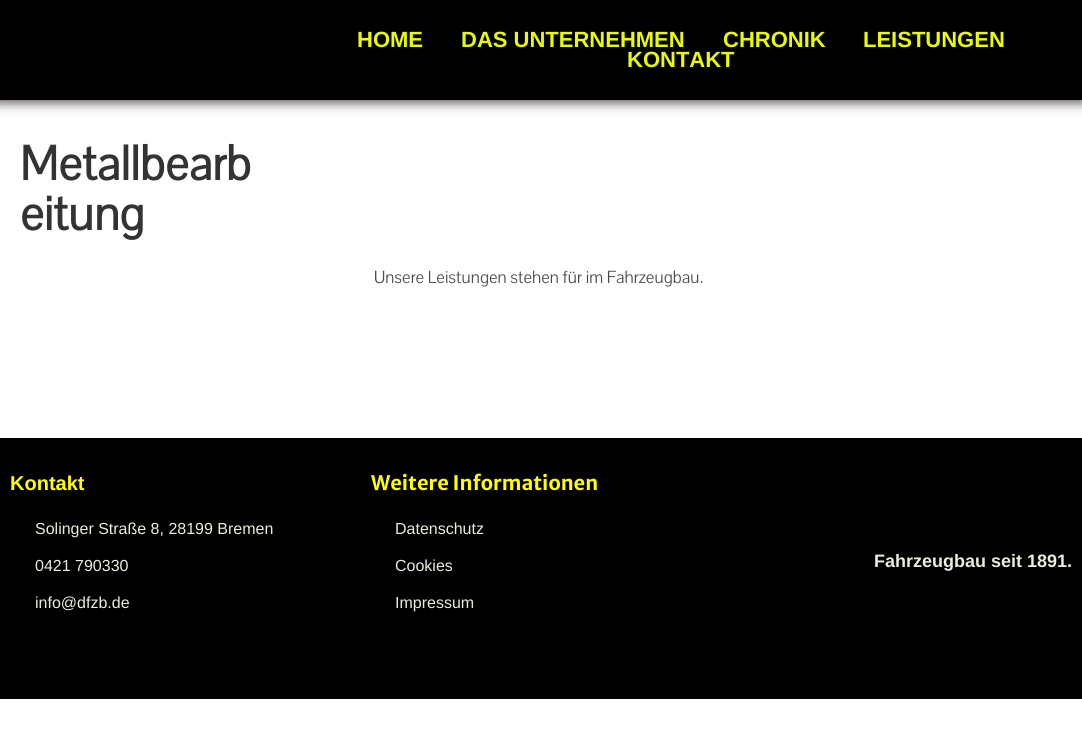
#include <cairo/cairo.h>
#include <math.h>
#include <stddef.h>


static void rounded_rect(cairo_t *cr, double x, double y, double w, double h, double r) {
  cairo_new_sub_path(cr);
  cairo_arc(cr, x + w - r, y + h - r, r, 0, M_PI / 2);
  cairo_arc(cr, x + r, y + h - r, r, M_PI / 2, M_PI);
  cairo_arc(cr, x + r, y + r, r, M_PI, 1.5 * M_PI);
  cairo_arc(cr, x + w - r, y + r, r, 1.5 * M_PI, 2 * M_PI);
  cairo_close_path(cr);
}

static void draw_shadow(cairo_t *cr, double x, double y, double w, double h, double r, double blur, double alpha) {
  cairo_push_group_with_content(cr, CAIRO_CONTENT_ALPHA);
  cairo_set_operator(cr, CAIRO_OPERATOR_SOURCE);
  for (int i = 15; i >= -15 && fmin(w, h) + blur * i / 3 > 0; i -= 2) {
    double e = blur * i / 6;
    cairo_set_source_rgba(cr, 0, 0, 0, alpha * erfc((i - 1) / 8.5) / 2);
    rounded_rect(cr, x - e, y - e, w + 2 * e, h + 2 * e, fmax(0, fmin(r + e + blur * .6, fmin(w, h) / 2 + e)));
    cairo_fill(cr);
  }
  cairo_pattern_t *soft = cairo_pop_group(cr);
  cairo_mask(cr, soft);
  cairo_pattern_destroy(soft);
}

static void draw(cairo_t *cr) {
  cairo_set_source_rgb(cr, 1, 1, 1);
  cairo_paint(cr);
  cairo_set_source_rgb(cr, 116 / 255.0, 101 / 255.0, 101 / 255.0);
  draw_shadow(cr, -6, -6, 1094, 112, 0, 5, 0.5);
  cairo_set_source_rgb(cr, 0, 0, 0);
  cairo_rectangle(cr, 0, 0, 1082, 100);
  cairo_fill(cr);
  cairo_save(cr);
  cairo_rectangle(cr, 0, 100, 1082, 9);
  cairo_clip(cr);
  cairo_set_source_rgb(cr, 0, 0, 0);
  draw_shadow(cr, 0, 0, 1082, 100, 0, 5, 0.5);
  cairo_restore(cr);
  cairo_rectangle(cr, 0, 438, 1082, 261);
  cairo_fill(cr);
  cairo_select_font_face(cr, "Liberation Sans", CAIRO_FONT_SLANT_NORMAL, CAIRO_FONT_WEIGHT_BOLD);
  cairo_set_font_size(cr, 22);
  cairo_set_source_rgb(cr, 234 / 255.0, 252 / 255.0, 4 / 255.0);
  cairo_move_to(cr, 357, 47);
  cairo_show_text(cr, "HOME");
  cairo_move_to(cr, 461, 47);
  cairo_show_text(cr, "DAS UNTERNEHMEN");
  cairo_move_to(cr, 723, 47);
  cairo_show_text(cr, "CHRONIK");
  cairo_move_to(cr, 863, 47);
  cairo_show_text(cr, "LEISTUNGEN");
  cairo_move_to(cr, 627, 67);
  cairo_show_text(cr, "KONTAKT");
  cairo_select_font_face(cr, "Pavanam", CAIRO_FONT_SLANT_NORMAL, CAIRO_FONT_WEIGHT_BOLD);
  cairo_set_font_size(cr, 50);
  cairo_set_source_rgb(cr, 51 / 255.0, 51 / 255.0, 51 / 255.0);
  cairo_move_to(cr, 20, 180);
  cairo_show_text(cr, "Metallbearb");
  cairo_move_to(cr, 20, 230);
  cairo_show_text(cr, "eitung");
  cairo_select_font_face(cr, "Pavanam", CAIRO_FONT_SLANT_NORMAL, CAIRO_FONT_WEIGHT_NORMAL);
  cairo_set_font_size(cr, 18);
  cairo_set_source_rgb(cr, 74 / 255.0, 74 / 255.0, 74 / 255.0);
  cairo_move_to(cr, 374, 283);
  cairo_show_text(cr, "Unsere Leistungen stehen für im Fahrzeugbau.");
  cairo_select_font_face(cr, "Liberation Sans", CAIRO_FONT_SLANT_NORMAL, CAIRO_FONT_WEIGHT_BOLD);
  cairo_set_font_size(cr, 20);
  cairo_set_source_rgb(cr, 1, 1, 0);
  cairo_move_to(cr, 10, 490);
  cairo_show_text(cr, "Kontakt");
  cairo_select_font_face(cr, "Liberation Sans", CAIRO_FONT_SLANT_NORMAL, CAIRO_FONT_WEIGHT_NORMAL);
  cairo_set_font_size(cr, 16);
  cairo_set_source_rgb(cr, 232 / 255.0, 237 / 255.0, 223 / 255.0);
  cairo_move_to(cr, 35, 534);
  cairo_show_text(cr, "Solinger Straße 8, 28199 Bremen");
  cairo_move_to(cr, 35, 571);
  cairo_show_text(cr, "0421 790330");
  cairo_move_to(cr, 35, 608);
  cairo_show_text(cr, "info@dfzb.de");
  cairo_select_font_face(cr, "Merriweather Sans", CAIRO_FONT_SLANT_NORMAL, CAIRO_FONT_WEIGHT_BOLD);
  cairo_set_font_size(cr, 20);
  cairo_set_source_rgb(cr, 1, 1, 0);
  cairo_move_to(cr, 371, 490);
  cairo_show_text(cr, "Weitere Informationen");
  cairo_select_font_face(cr, "Liberation Sans", CAIRO_FONT_SLANT_NORMAL, CAIRO_FONT_WEIGHT_NORMAL);
  cairo_set_font_size(cr, 16);
  cairo_set_source_rgb(cr, 232 / 255.0, 237 / 255.0, 223 / 255.0);
  cairo_move_to(cr, 395, 534);
  cairo_show_text(cr, "Datenschutz");
  cairo_move_to(cr, 395, 571);
  cairo_show_text(cr, "Cookies");
  cairo_move_to(cr, 395, 608);
  cairo_show_text(cr, "Impressum");
  cairo_select_font_face(cr, "Liberation Sans", CAIRO_FONT_SLANT_NORMAL, CAIRO_FONT_WEIGHT_BOLD);
  cairo_set_font_size(cr, 18);
  cairo_move_to(cr, 874, 567);
  cairo_show_text(cr, "Fahrzeugbau seit 1891.");
}

int main(void) {
  cairo_surface_t *surface = cairo_image_surface_create(CAIRO_FORMAT_RGB24, 1082, 733);
  cairo_t *cr = cairo_create(surface);
  cairo_font_options_t *options = cairo_font_options_create();
  cairo_font_options_set_hint_metrics(options, CAIRO_HINT_METRICS_OFF);
  cairo_font_options_set_hint_style(options, CAIRO_HINT_STYLE_NONE);
  cairo_set_font_options(cr, options);
  cairo_set_miter_limit(cr, 4);
  draw(cr);
  cairo_surface_write_to_png(surface, "out.png");
  cairo_font_options_destroy(options);
  cairo_destroy(cr);
  cairo_surface_destroy(surface);
  return 0;
}
